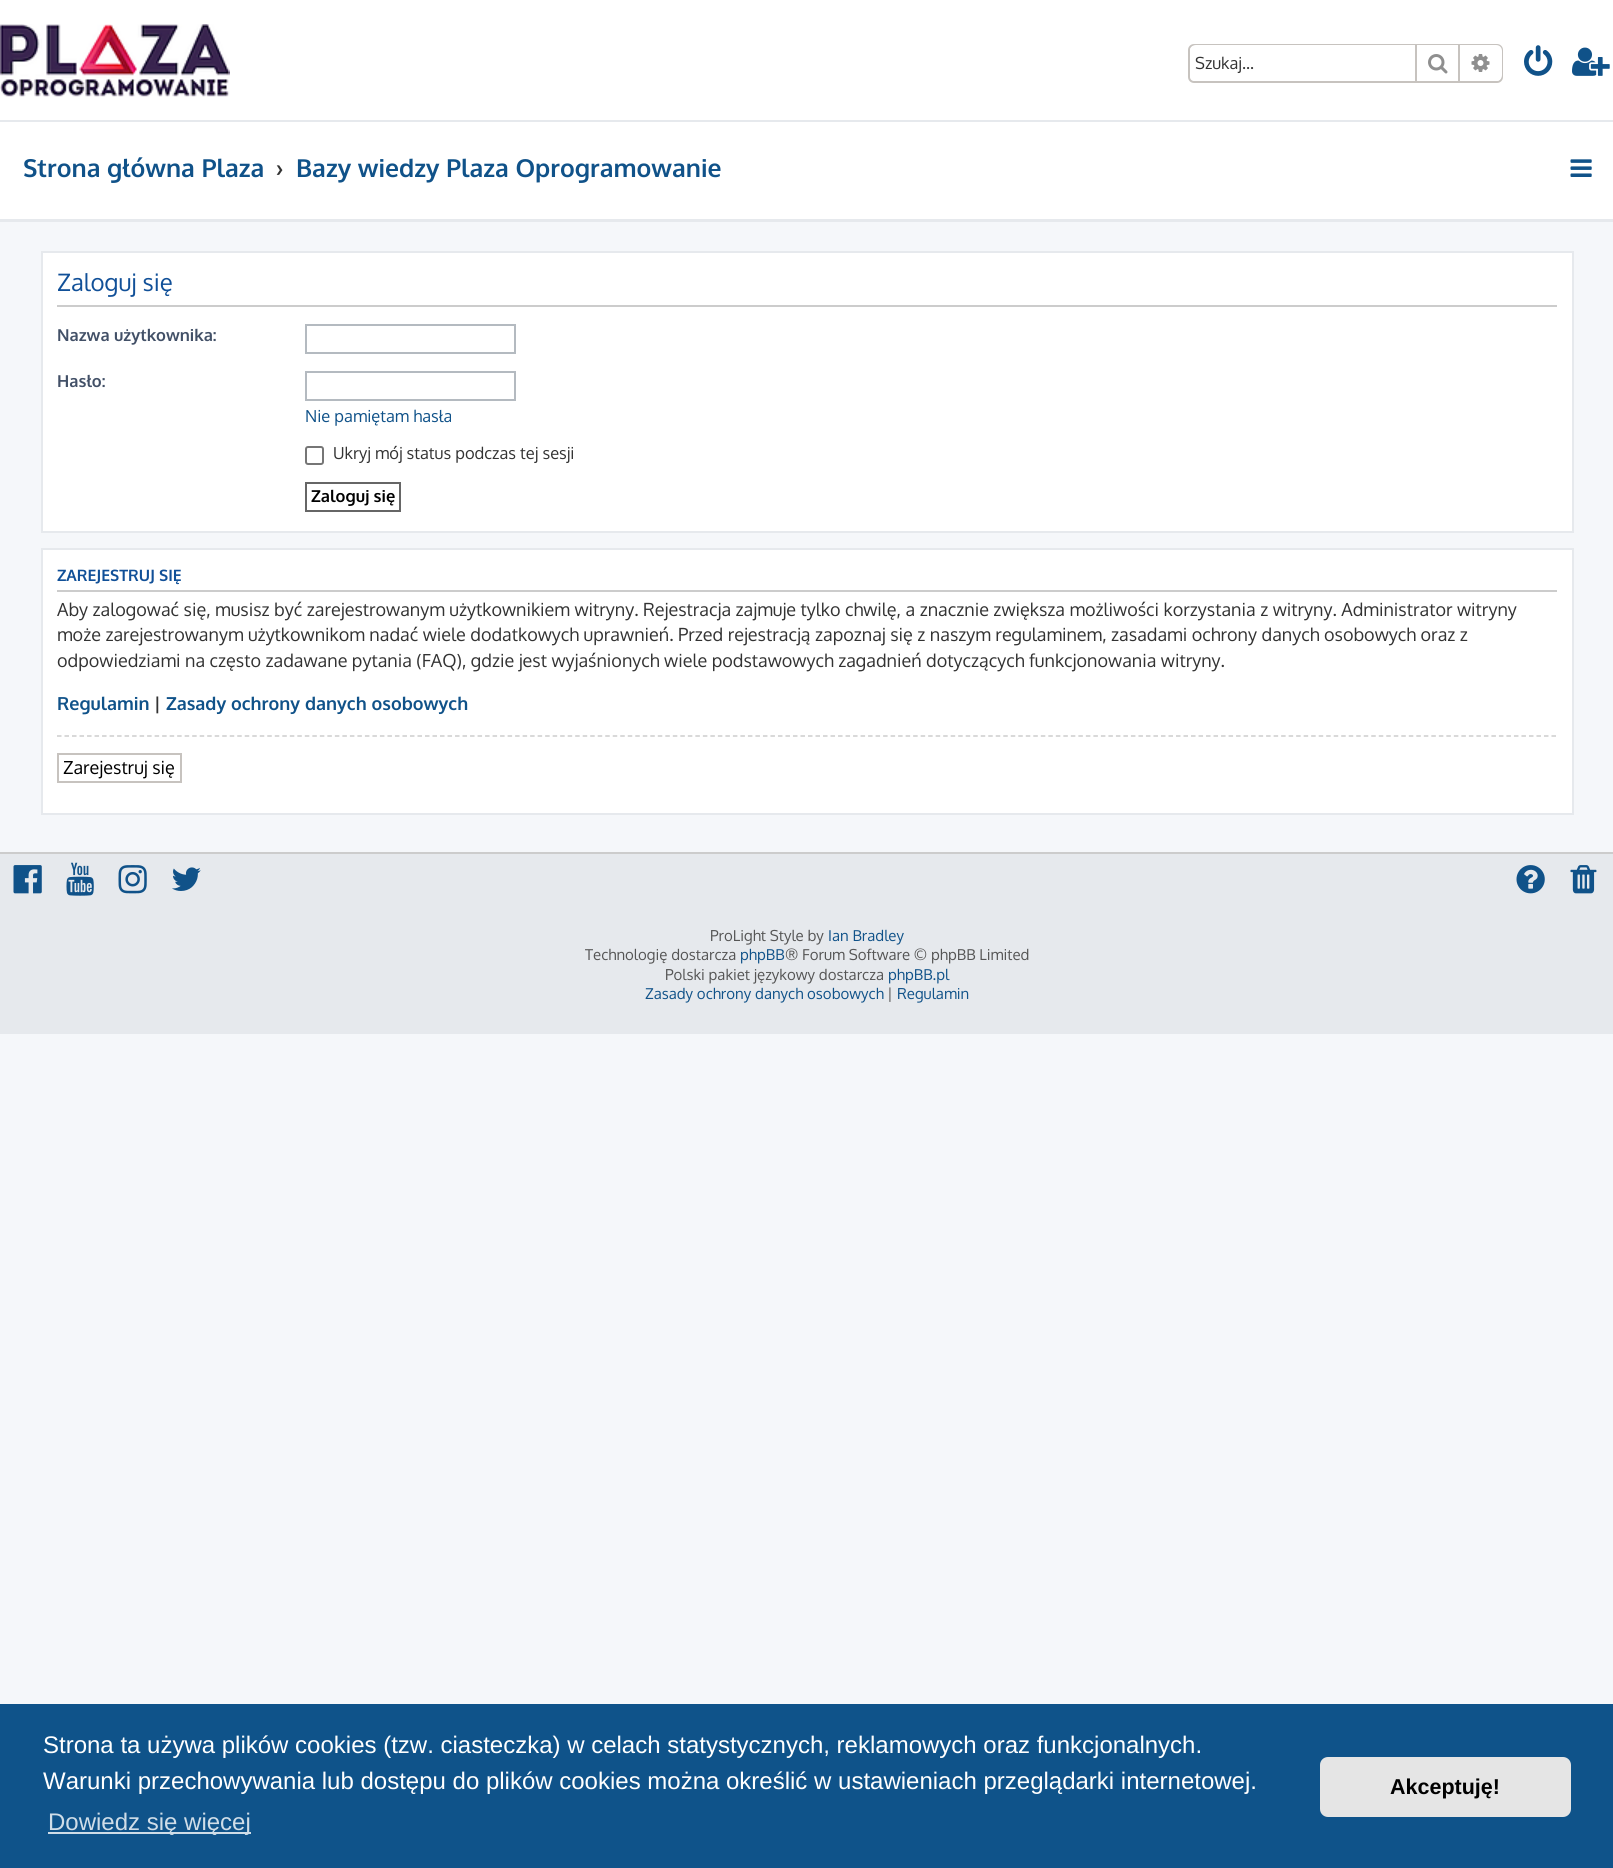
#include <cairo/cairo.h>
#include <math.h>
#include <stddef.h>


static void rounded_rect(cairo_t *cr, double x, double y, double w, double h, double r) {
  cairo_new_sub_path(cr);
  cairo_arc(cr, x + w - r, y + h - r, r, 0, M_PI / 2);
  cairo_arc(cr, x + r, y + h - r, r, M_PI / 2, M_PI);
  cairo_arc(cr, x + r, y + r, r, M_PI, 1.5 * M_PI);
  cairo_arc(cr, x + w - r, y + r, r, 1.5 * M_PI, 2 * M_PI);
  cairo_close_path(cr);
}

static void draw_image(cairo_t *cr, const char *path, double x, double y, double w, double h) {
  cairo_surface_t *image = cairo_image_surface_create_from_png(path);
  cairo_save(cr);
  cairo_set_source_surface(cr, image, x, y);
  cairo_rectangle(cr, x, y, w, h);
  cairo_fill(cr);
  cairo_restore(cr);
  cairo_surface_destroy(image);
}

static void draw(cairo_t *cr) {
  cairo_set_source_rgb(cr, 245 / 255.0, 247 / 255.0, 250 / 255.0);
  cairo_paint(cr);
  cairo_set_source_rgb(cr, 1, 1, 1);
  cairo_rectangle(cr, 0, 0, 1613, 120);
  cairo_fill(cr);
  cairo_set_source_rgb(cr, 230 / 255.0, 233 / 255.0, 237 / 255.0);
  cairo_rectangle(cr, 0, 120, 1613, 2);
  cairo_fill(cr);
  draw_image(cr, "images/1.png", 0, 24, 230, 73);
  rounded_rect(cr, 1189, 45, 313, 37, 5);
  cairo_set_source_rgb(cr, 199 / 255.0, 195 / 255.0, 191 / 255.0);
  cairo_stroke(cr);
  cairo_set_source_rgb(cr, 1, 1, 1);
  cairo_new_path(cr);
  cairo_move_to(cr, 1196, 45);
  cairo_line_to(cr, 1415, 45);
  cairo_line_to(cr, 1415, 81);
  cairo_line_to(cr, 1196, 81);
  cairo_curve_to(cr, 1192.5, 81, 1190, 78.5, 1190, 75);
  cairo_line_to(cr, 1190, 51);
  cairo_curve_to(cr, 1190, 47.5, 1192.5, 45, 1196, 45);
  cairo_close_path(cr);
  cairo_fill(cr);
  cairo_rectangle(cr, 1417, 45, 41, 1);
  cairo_fill(cr);
  cairo_set_source_rgb(cr, 199 / 255.0, 195 / 255.0, 191 / 255.0);
  cairo_rectangle(cr, 1458, 45, 2, 36);
  cairo_fill(cr);
  cairo_rectangle(cr, 1415, 45, 2, 36);
  cairo_fill(cr);
  draw_image(cr, "images/2.png", 1428, 54, 20, 20);
  cairo_set_source_rgb(cr, 1, 1, 1);
  cairo_new_path(cr);
  cairo_move_to(cr, 1460, 45);
  cairo_line_to(cr, 1496, 45);
  cairo_curve_to(cr, 1499.5, 45, 1502, 47.5, 1502, 51);
  cairo_line_to(cr, 1502, 75);
  cairo_curve_to(cr, 1502, 78.5, 1499.5, 81, 1496, 81);
  cairo_line_to(cr, 1460, 81);
  cairo_close_path(cr);
  cairo_fill(cr);
  draw_image(cr, "images/3.png", 1471, 54, 19, 18);
  draw_image(cr, "images/4.png", 1524, 45, 29, 31);
  draw_image(cr, "images/5.png", 1572, 47, 38, 29);
  cairo_rectangle(cr, 0, 122, 1613, 97);
  cairo_fill(cr);
  cairo_set_source_rgb(cr, 230 / 255.0, 233 / 255.0, 237 / 255.0);
  cairo_rectangle(cr, 0, 219, 1613, 3);
  cairo_fill(cr);
  draw_image(cr, "images/6.png", 1570, 159, 22, 18);
  cairo_set_source_rgb(cr, 1, 1, 1);
  cairo_rectangle(cr, 42, 252, 1531, 280);
  cairo_fill_preserve(cr);
  cairo_set_source_rgb(cr, 230 / 255.0, 233 / 255.0, 237 / 255.0);
  cairo_stroke(cr);
  cairo_set_source_rgb(cr, 204 / 255.0, 204 / 255.0, 204 / 255.0);
  cairo_rectangle(cr, 57, 305, 1500, 2);
  cairo_fill(cr);
  cairo_rectangle(cr, 306, 325, 209, 28);
  cairo_set_source_rgb(cr, 180 / 255.0, 186 / 255.0, 192 / 255.0);
  cairo_stroke(cr);
  cairo_rectangle(cr, 306, 372, 209, 28);
  cairo_stroke(cr);
  rounded_rect(cr, 306, 447, 17, 17, 2);
  cairo_set_source_rgb(cr, 118 / 255.0, 118 / 255.0, 118 / 255.0);
  cairo_stroke(cr);
  cairo_rectangle(cr, 306, 483, 94, 28);
  cairo_set_source_rgb(cr, 102 / 255.0, 102 / 255.0, 102 / 255.0);
  cairo_stroke(cr);
  cairo_set_source_rgb(cr, 1, 1, 1);
  cairo_rectangle(cr, 42, 549, 1531, 265);
  cairo_fill_preserve(cr);
  cairo_set_source_rgb(cr, 230 / 255.0, 233 / 255.0, 237 / 255.0);
  cairo_stroke(cr);
  cairo_set_source_rgb(cr, 204 / 255.0, 204 / 255.0, 204 / 255.0);
  cairo_rectangle(cr, 57, 590, 1500, 2);
  cairo_fill(cr);
  cairo_new_path(cr);
  cairo_move_to(cr, 57, 736);
  cairo_line_to(cr, 1557, 736);
  cairo_set_line_width(cr, 1.5);
  cairo_set_dash(cr, (double[]){4.5, 3.01}, 2, 0);
  cairo_stroke(cr);
  cairo_rectangle(cr, 58, 754, 123, 28);
  cairo_set_source_rgb(cr, 199 / 255.0, 195 / 255.0, 191 / 255.0);
  cairo_set_line_width(cr, 2);
  cairo_set_dash(cr, NULL, 0, 0);
  cairo_stroke(cr);
  cairo_set_source_rgb(cr, 230 / 255.0, 233 / 255.0, 237 / 255.0);
  cairo_rectangle(cr, 0, 854, 1613, 180);
  cairo_fill(cr);
  cairo_set_source_rgb(cr, 204 / 255.0, 204 / 255.0, 204 / 255.0);
  cairo_rectangle(cr, 0, 852, 1613, 2);
  cairo_fill(cr);
  draw_image(cr, "images/7.png", 13, 865, 29, 29);
  draw_image(cr, "images/8.png", 66, 862, 28, 34);
  draw_image(cr, "images/9.png", 118, 865, 29, 29);
  draw_image(cr, "images/10.png", 172, 867, 29, 24);
  draw_image(cr, "images/11.png", 1516, 865, 29, 29);
  draw_image(cr, "images/12.png", 1570, 865, 27, 29);
  cairo_set_source_rgb(cr, 15 / 255.0, 83 / 255.0, 138 / 255.0);
  cairo_rectangle(cr, 0, 1704, 1613, 164);
  cairo_fill(cr);
  cairo_set_source_rgb(cr, 207 / 255.0, 221 / 255.0, 232 / 255.0);
  cairo_rectangle(cr, 48, 1832, 203, 2);
  cairo_fill(cr);
  cairo_set_source_rgb(cr, 229 / 255.0, 229 / 255.0, 229 / 255.0);
  rounded_rect(cr, 1320, 1757, 251, 60, 8);
  cairo_fill(cr);
  cairo_select_font_face(cr, "Oxygen", CAIRO_FONT_SLANT_NORMAL, CAIRO_FONT_WEIGHT_NORMAL);
  cairo_set_font_size(cr, 16.5);
  cairo_set_source_rgb(cr, 51 / 255.0, 51 / 255.0, 51 / 255.0);
  cairo_move_to(cr, 1195, 69);
  cairo_show_text(cr, "Szukaj…");
  cairo_select_font_face(cr, "Oxygen", CAIRO_FONT_SLANT_NORMAL, CAIRO_FONT_WEIGHT_BOLD);
  cairo_set_font_size(cr, 24.75);
  cairo_set_source_rgb(cr, 16 / 255.0, 82 / 255.0, 137 / 255.0);
  cairo_move_to(cr, 23, 177);
  cairo_show_text(cr, "Strona główna Plaza");
  cairo_set_source_rgb(cr, 51 / 255.0, 51 / 255.0, 51 / 255.0);
  cairo_move_to(cr, 276, 177);
  cairo_show_text(cr, "›");
  cairo_set_source_rgb(cr, 16 / 255.0, 82 / 255.0, 137 / 255.0);
  cairo_move_to(cr, 296, 177);
  cairo_show_text(cr, "Bazy wiedzy Plaza Oprogramowanie");
  cairo_select_font_face(cr, "Oxygen", CAIRO_FONT_SLANT_NORMAL, CAIRO_FONT_WEIGHT_NORMAL);
  cairo_set_font_size(cr, 24);
  cairo_set_source_rgb(cr, 17 / 255.0, 80 / 255.0, 152 / 255.0);
  cairo_move_to(cr, 57, 291);
  cairo_show_text(cr, "Zaloguj się");
  cairo_select_font_face(cr, "Oxygen", CAIRO_FONT_SLANT_NORMAL, CAIRO_FONT_WEIGHT_BOLD);
  cairo_set_font_size(cr, 16.5);
  cairo_set_source_rgb(cr, 66 / 255.0, 80 / 255.0, 103 / 255.0);
  cairo_move_to(cr, 57, 341);
  cairo_show_text(cr, "Nazwa użytkownika:");
  cairo_move_to(cr, 57, 387);
  cairo_show_text(cr, "Hasło:");
  cairo_select_font_face(cr, "Oxygen", CAIRO_FONT_SLANT_NORMAL, CAIRO_FONT_WEIGHT_NORMAL);
  cairo_set_source_rgb(cr, 16 / 255.0, 82 / 255.0, 137 / 255.0);
  cairo_move_to(cr, 305, 422);
  cairo_show_text(cr, "Nie pamiętam hasła");
  cairo_set_source_rgb(cr, 51 / 255.0, 51 / 255.0, 51 / 255.0);
  cairo_move_to(cr, 333, 459);
  cairo_show_text(cr, "Ukryj mój status podczas tej sesji");
  cairo_select_font_face(cr, "Oxygen", CAIRO_FONT_SLANT_NORMAL, CAIRO_FONT_WEIGHT_BOLD);
  cairo_set_source_rgb(cr, 0, 0, 0);
  cairo_move_to(cr, 311, 502);
  cairo_show_text(cr, "Zaloguj się");
  cairo_set_font_size(cr, 15.75);
  cairo_set_source_rgb(cr, 17 / 255.0, 80 / 255.0, 152 / 255.0);
  cairo_move_to(cr, 57, 581);
  cairo_show_text(cr, "ZAREJESTRUJ SIĘ");
  cairo_select_font_face(cr, "Oxygen", CAIRO_FONT_SLANT_NORMAL, CAIRO_FONT_WEIGHT_NORMAL);
  cairo_set_font_size(cr, 18);
  cairo_set_source_rgb(cr, 51 / 255.0, 51 / 255.0, 51 / 255.0);
  cairo_move_to(cr, 57, 616);
  cairo_show_text(cr, "Aby zalogować się, musisz być zarejestrowanym użytkownikiem witryny. Rejestracja zajmuje tylko chwilę, a znacznie zwiększa możliwości korzystania z witryny. Administrator witryny");
  cairo_move_to(cr, 57, 641);
  cairo_show_text(cr, "może zarejestrowanym użytkownikom nadać wiele dodatkowych uprawnień. Przed rejestracją zapoznaj się z naszym regulaminem, zasadami ochrony danych osobowych oraz z");
  cairo_move_to(cr, 57, 667);
  cairo_show_text(cr, "odpowiedziami na często zadawane pytania (FAQ), gdzie jest wyjaśnionych wiele podstawowych zagadnień dotyczących funkcjonowania witryny.");
  cairo_select_font_face(cr, "Oxygen", CAIRO_FONT_SLANT_NORMAL, CAIRO_FONT_WEIGHT_BOLD);
  cairo_set_source_rgb(cr, 16 / 255.0, 82 / 255.0, 137 / 255.0);
  cairo_move_to(cr, 57, 710);
  cairo_show_text(cr, "Regulamin");
  cairo_set_source_rgb(cr, 51 / 255.0, 51 / 255.0, 51 / 255.0);
  cairo_move_to(cr, 154, 710);
  cairo_show_text(cr, "|");
  cairo_set_source_rgb(cr, 16 / 255.0, 82 / 255.0, 137 / 255.0);
  cairo_move_to(cr, 166, 710);
  cairo_show_text(cr, "Zasady ochrony danych osobowych");
  cairo_select_font_face(cr, "Oxygen", CAIRO_FONT_SLANT_NORMAL, CAIRO_FONT_WEIGHT_NORMAL);
  cairo_set_source_rgb(cr, 0, 0, 0);
  cairo_move_to(cr, 63, 774);
  cairo_show_text(cr, "Zarejestruj się");
  cairo_set_font_size(cr, 15);
  cairo_set_source_rgb(cr, 85 / 255.0, 85 / 255.0, 85 / 255.0);
  cairo_move_to(cr, 710, 941);
  cairo_show_text(cr, "ProLight Style by");
  cairo_set_source_rgb(cr, 16 / 255.0, 82 / 255.0, 137 / 255.0);
  cairo_move_to(cr, 828, 941);
  cairo_show_text(cr, "Ian Bradley");
  cairo_set_source_rgb(cr, 85 / 255.0, 85 / 255.0, 85 / 255.0);
  cairo_move_to(cr, 585, 960);
  cairo_show_text(cr, "Technologię dostarcza");
  cairo_set_source_rgb(cr, 16 / 255.0, 82 / 255.0, 137 / 255.0);
  cairo_move_to(cr, 740, 960);
  cairo_show_text(cr, "phpBB");
  cairo_set_source_rgb(cr, 85 / 255.0, 85 / 255.0, 85 / 255.0);
  cairo_move_to(cr, 785, 960);
  cairo_show_text(cr, "® Forum Software © phpBB Limited");
  cairo_move_to(cr, 665, 980);
  cairo_show_text(cr, "Polski pakiet językowy dostarcza");
  cairo_set_source_rgb(cr, 16 / 255.0, 82 / 255.0, 137 / 255.0);
  cairo_move_to(cr, 888, 980);
  cairo_show_text(cr, "phpBB.pl");
  cairo_move_to(cr, 645, 999);
  cairo_show_text(cr, "Zasady ochrony danych osobowych");
  cairo_set_source_rgb(cr, 85 / 255.0, 85 / 255.0, 85 / 255.0);
  cairo_move_to(cr, 887, 999);
  cairo_show_text(cr, "|");
  cairo_set_source_rgb(cr, 16 / 255.0, 82 / 255.0, 137 / 255.0);
  cairo_move_to(cr, 897, 999);
  cairo_show_text(cr, "Regulamin");
  cairo_select_font_face(cr, "Liberation Sans", CAIRO_FONT_SLANT_NORMAL, CAIRO_FONT_WEIGHT_NORMAL);
  cairo_set_font_size(cr, 24);
  cairo_set_source_rgb(cr, 1, 1, 1);
  cairo_move_to(cr, 43, 1753);
  cairo_show_text(cr, "Strona ta używa plików cookies (tzw. ciasteczka) w celach statystycznych, reklamowych oraz funkcjonalnych.");
  cairo_move_to(cr, 43, 1789);
  cairo_show_text(cr, "Warunki przechowywania lub dostępu do plików cookies można określić w ustawieniach przeglądarki internetowej.");
  cairo_set_source_rgb(cr, 207 / 255.0, 221 / 255.0, 232 / 255.0);
  cairo_move_to(cr, 48, 1830);
  cairo_show_text(cr, "Dowiedz się więcej");
  cairo_select_font_face(cr, "Liberation Sans", CAIRO_FONT_SLANT_NORMAL, CAIRO_FONT_WEIGHT_BOLD);
  cairo_set_font_size(cr, 21.5);
  cairo_set_source_rgb(cr, 0, 0, 0);
  cairo_move_to(cr, 1390, 1794);
  cairo_show_text(cr, "Akceptuję!");
}

int main(void) {
  cairo_surface_t *surface = cairo_image_surface_create(CAIRO_FORMAT_RGB24, 1613, 1868);
  cairo_t *cr = cairo_create(surface);
  cairo_font_options_t *options = cairo_font_options_create();
  cairo_font_options_set_hint_metrics(options, CAIRO_HINT_METRICS_OFF);
  cairo_font_options_set_hint_style(options, CAIRO_HINT_STYLE_NONE);
  cairo_set_font_options(cr, options);
  cairo_set_miter_limit(cr, 4);
  draw(cr);
  cairo_surface_write_to_png(surface, "out.png");
  cairo_font_options_destroy(options);
  cairo_destroy(cr);
  cairo_surface_destroy(surface);
  return 0;
}
